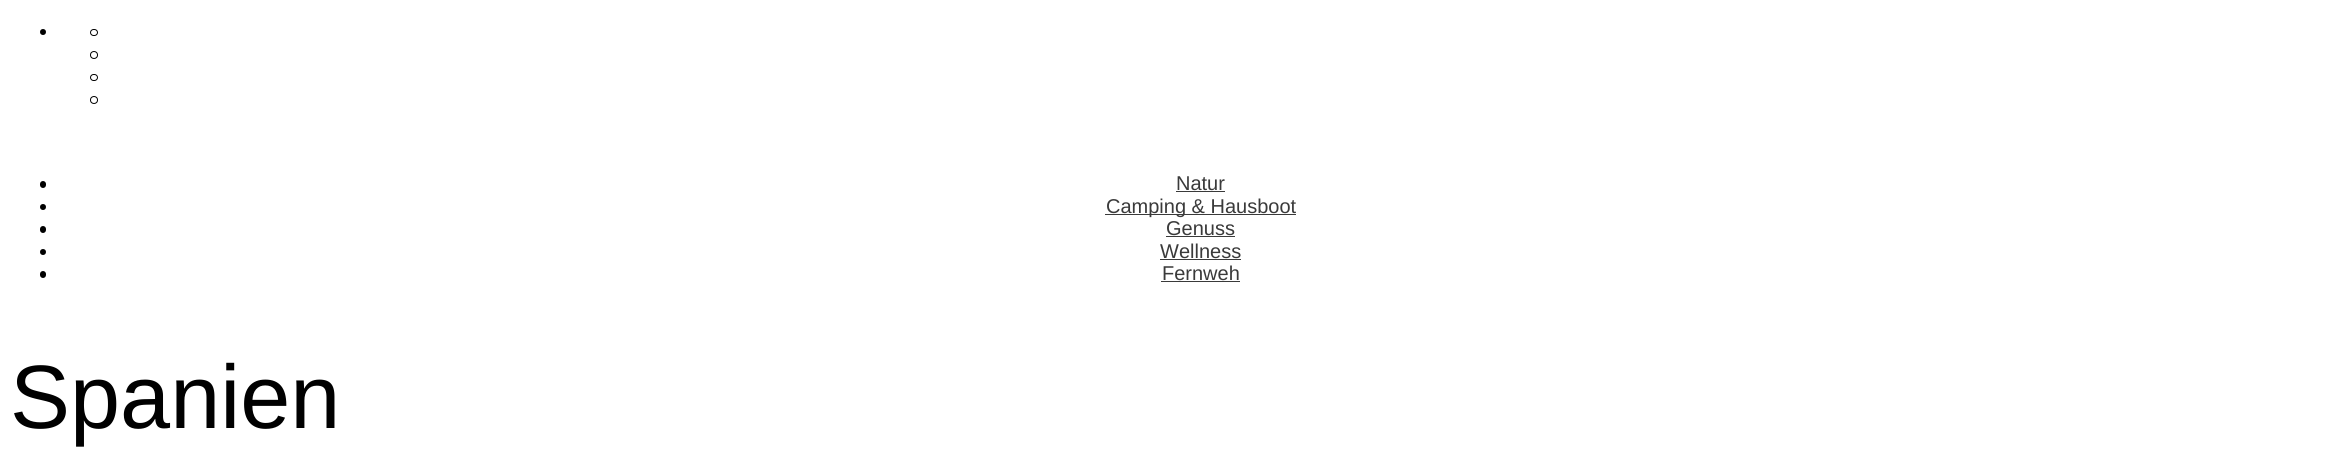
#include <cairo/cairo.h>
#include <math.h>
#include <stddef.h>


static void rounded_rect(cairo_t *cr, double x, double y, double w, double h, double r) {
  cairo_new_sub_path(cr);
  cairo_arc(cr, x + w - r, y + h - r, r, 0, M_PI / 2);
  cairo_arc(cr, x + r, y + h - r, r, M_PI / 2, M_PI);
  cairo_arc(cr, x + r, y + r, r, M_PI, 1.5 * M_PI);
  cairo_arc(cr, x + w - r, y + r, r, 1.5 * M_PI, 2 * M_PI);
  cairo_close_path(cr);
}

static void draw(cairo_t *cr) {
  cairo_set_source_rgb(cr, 1, 1, 1);
  cairo_paint(cr);
  cairo_set_source_rgb(cr, 0, 0, 0);
  cairo_arc(cr, 43, 32, 3, 0, 2 * M_PI);
  cairo_fill(cr);
  rounded_rect(cr, 90.5, 29.5, 7, 6, 3);
  cairo_set_line_width(cr, 1);
  cairo_stroke(cr);
  cairo_arc(cr, 94, 55, 3.5, 0, 2 * M_PI);
  cairo_stroke(cr);
  rounded_rect(cr, 90.5, 74.5, 7, 6, 3);
  cairo_stroke(cr);
  cairo_arc(cr, 94, 100, 3.5, 0, 2 * M_PI);
  cairo_stroke(cr);
  rounded_rect(cr, 40, 181, 6, 7, 3);
  cairo_fill(cr);
  cairo_set_source_rgb(cr, 58 / 255.0, 58 / 255.0, 58 / 255.0);
  cairo_rectangle(cr, 1176, 191, 49, 1);
  cairo_fill(cr);
  cairo_set_source_rgb(cr, 0, 0, 0);
  cairo_arc(cr, 43, 207, 3, 0, 2 * M_PI);
  cairo_fill(cr);
  cairo_set_source_rgb(cr, 58 / 255.0, 58 / 255.0, 58 / 255.0);
  cairo_rectangle(cr, 1105, 214, 191, 1);
  cairo_fill(cr);
  cairo_set_source_rgb(cr, 0, 0, 0);
  rounded_rect(cr, 40, 226, 6, 7, 3);
  cairo_fill(cr);
  cairo_set_source_rgb(cr, 58 / 255.0, 58 / 255.0, 58 / 255.0);
  cairo_rectangle(cr, 1166, 236, 69, 1);
  cairo_fill(cr);
  cairo_set_source_rgb(cr, 0, 0, 0);
  cairo_arc(cr, 43, 252, 3, 0, 2 * M_PI);
  cairo_fill(cr);
  cairo_set_source_rgb(cr, 58 / 255.0, 58 / 255.0, 58 / 255.0);
  cairo_rectangle(cr, 1160, 259, 81, 1);
  cairo_fill(cr);
  cairo_set_source_rgb(cr, 0, 0, 0);
  rounded_rect(cr, 40, 271, 6, 7, 3);
  cairo_fill(cr);
  cairo_set_source_rgb(cr, 58 / 255.0, 58 / 255.0, 58 / 255.0);
  cairo_rectangle(cr, 1161, 281, 79, 1);
  cairo_fill(cr);
  cairo_select_font_face(cr, "Liberation Sans", CAIRO_FONT_SLANT_NORMAL, CAIRO_FONT_WEIGHT_NORMAL);
  cairo_set_font_size(cr, 20);
  cairo_move_to(cr, 1176, 190);
  cairo_show_text(cr, "Natur");
  cairo_move_to(cr, 1106, 213);
  cairo_show_text(cr, "Camping & Hausboot");
  cairo_move_to(cr, 1166, 235);
  cairo_show_text(cr, "Genuss");
  cairo_move_to(cr, 1160, 258);
  cairo_show_text(cr, "Wellness");
  cairo_move_to(cr, 1162, 280);
  cairo_show_text(cr, "Fernweh");
  cairo_set_font_size(cr, 90);
  cairo_set_source_rgb(cr, 0, 0, 0);
  cairo_move_to(cr, 10, 428);
  cairo_show_text(cr, "Spanien");
}

int main(void) {
  cairo_surface_t *surface = cairo_image_surface_create(CAIRO_FORMAT_RGB24, 2351, 474);
  cairo_t *cr = cairo_create(surface);
  cairo_font_options_t *options = cairo_font_options_create();
  cairo_font_options_set_hint_metrics(options, CAIRO_HINT_METRICS_OFF);
  cairo_font_options_set_hint_style(options, CAIRO_HINT_STYLE_NONE);
  cairo_set_font_options(cr, options);
  cairo_set_miter_limit(cr, 4);
  draw(cr);
  cairo_surface_write_to_png(surface, "out.png");
  cairo_font_options_destroy(options);
  cairo_destroy(cr);
  cairo_surface_destroy(surface);
  return 0;
}
